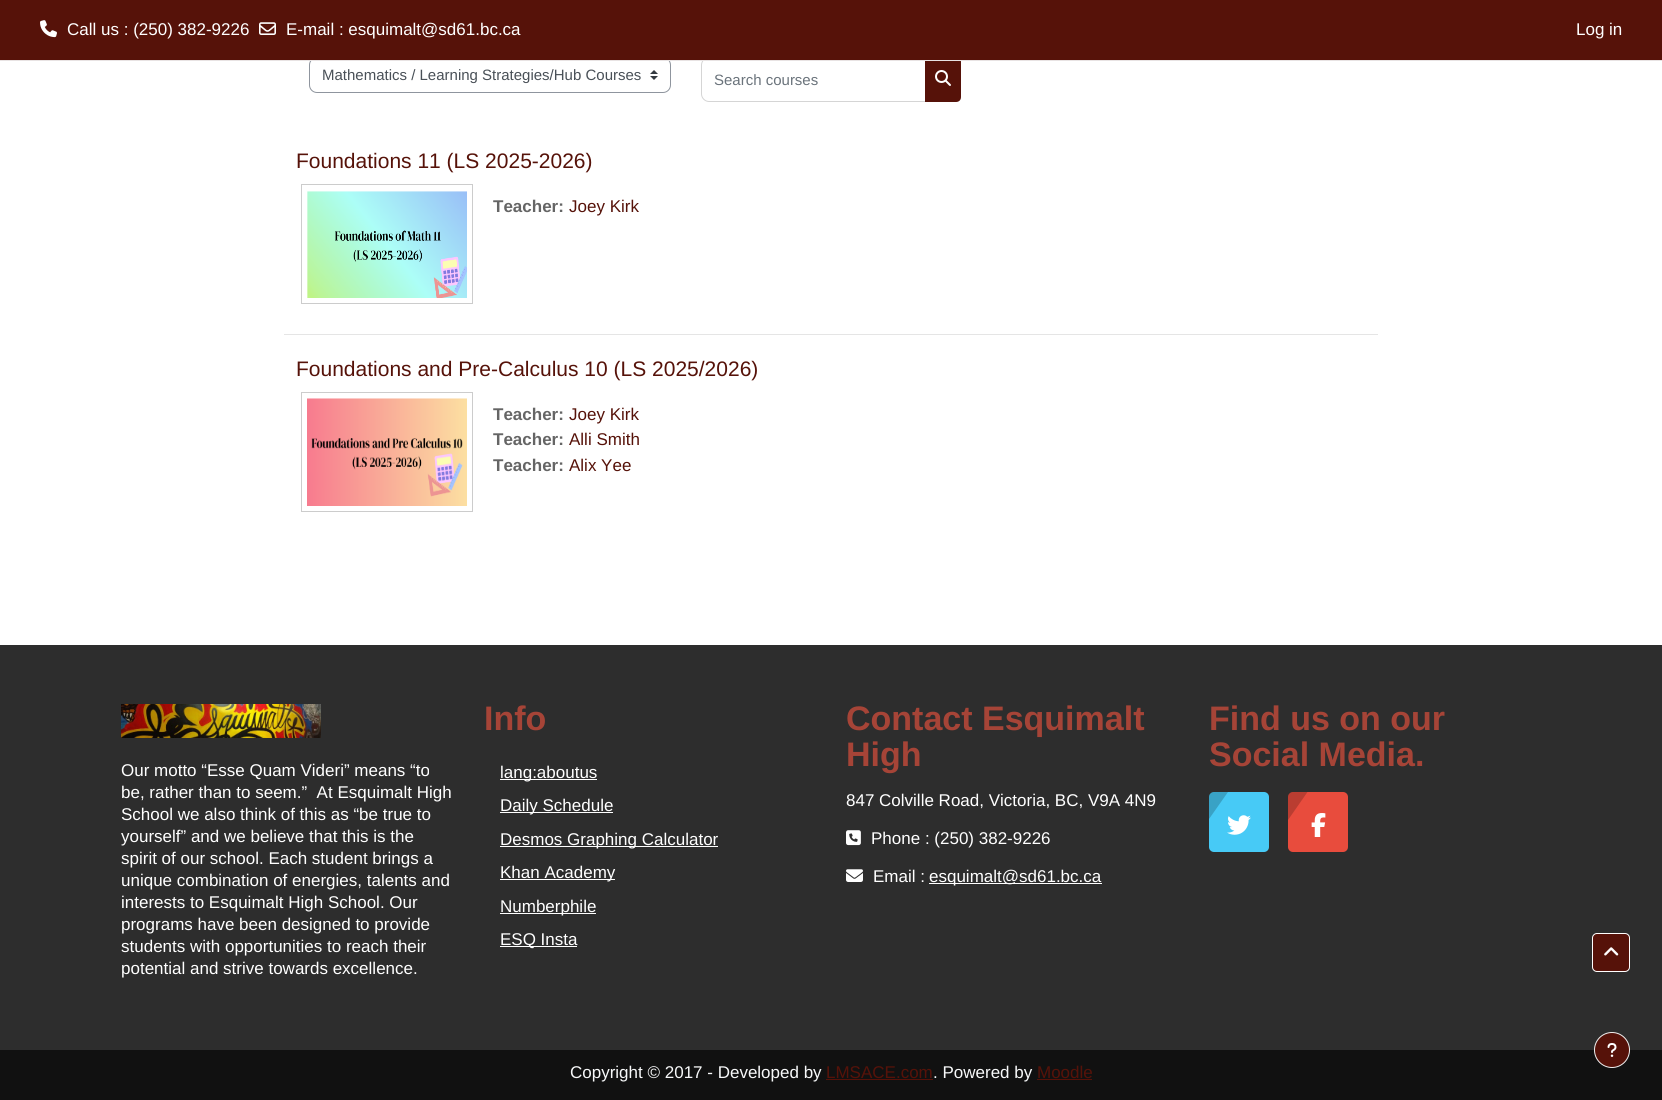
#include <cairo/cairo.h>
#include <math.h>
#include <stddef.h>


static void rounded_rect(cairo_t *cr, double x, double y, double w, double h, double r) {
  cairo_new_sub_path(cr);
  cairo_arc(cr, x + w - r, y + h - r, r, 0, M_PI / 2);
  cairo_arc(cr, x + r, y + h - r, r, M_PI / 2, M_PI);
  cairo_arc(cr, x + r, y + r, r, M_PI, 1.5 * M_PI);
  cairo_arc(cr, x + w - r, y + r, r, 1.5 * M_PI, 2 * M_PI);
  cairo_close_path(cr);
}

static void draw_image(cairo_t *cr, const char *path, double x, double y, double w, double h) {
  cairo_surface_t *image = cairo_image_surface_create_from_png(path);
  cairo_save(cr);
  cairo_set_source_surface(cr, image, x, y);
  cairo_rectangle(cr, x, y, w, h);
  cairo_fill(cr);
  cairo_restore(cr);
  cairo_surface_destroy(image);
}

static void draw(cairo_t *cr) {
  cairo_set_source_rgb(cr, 1, 1, 1);
  cairo_paint(cr);
  draw_image(cr, "images/3.png", 650, 70, 8, 10);
  rounded_rect(cr, 309.5, 57.5, 361, 35, 7.5);
  cairo_set_source_rgb(cr, 143 / 255.0, 149 / 255.0, 158 / 255.0);
  cairo_set_line_width(cr, 1);
  cairo_stroke(cr);
  cairo_new_path(cr);
  cairo_move_to(cr, 709, 57.5);
  cairo_line_to(cr, 925.5, 57.5);
  cairo_line_to(cr, 925.5, 101.5);
  cairo_line_to(cr, 709, 101.5);
  cairo_curve_to(cr, 705, 101.5, 701.5, 98, 701.5, 94);
  cairo_line_to(cr, 701.5, 65);
  cairo_curve_to(cr, 701.5, 61, 705, 57.5, 709, 57.5);
  cairo_close_path(cr);
  cairo_set_source_rgb(cr, 213 / 255.0, 213 / 255.0, 213 / 255.0);
  cairo_stroke(cr);
  cairo_set_source_rgb(cr, 86 / 255.0, 18 / 255.0, 9 / 255.0);
  cairo_new_path(cr);
  cairo_move_to(cr, 925, 57);
  cairo_line_to(cr, 956, 57);
  cairo_curve_to(cr, 959, 57, 961, 59, 961, 62);
  cairo_line_to(cr, 961, 97);
  cairo_curve_to(cr, 961, 100, 959, 102, 956, 102);
  cairo_line_to(cr, 925, 102);
  cairo_close_path(cr);
  cairo_fill(cr);
  cairo_rectangle(cr, 0, 0, 1662, 60);
  cairo_fill(cr);
  cairo_set_source_rgb(cr, 232 / 255.0, 227 / 255.0, 227 / 255.0);
  cairo_rectangle(cr, 0, 60, 1662, 1);
  cairo_fill(cr);
  draw_image(cr, "images/1.png", 40, 20, 17, 18);
  draw_image(cr, "images/2.png", 259, 22, 17, 13);
  draw_image(cr, "images/4.png", 935, 70, 16, 16);
  cairo_set_source_rgb(cr, 229 / 255.0, 229 / 255.0, 229 / 255.0);
  cairo_rectangle(cr, 284, 334, 1094, 1);
  cairo_fill(cr);
  cairo_rectangle(cr, 301.5, 184.5, 171, 119);
  cairo_set_source_rgb(cr, 204 / 255.0, 204 / 255.0, 204 / 255.0);
  cairo_stroke(cr);
  draw_image(cr, "images/5.png", 307, 191, 160, 107);
  cairo_rectangle(cr, 301.5, 392.5, 171, 119);
  cairo_stroke(cr);
  draw_image(cr, "images/6.png", 307, 398, 160, 108);
  cairo_set_source_rgb(cr, 45 / 255.0, 45 / 255.0, 45 / 255.0);
  cairo_rectangle(cr, 0, 645, 1662, 405);
  cairo_fill(cr);
  cairo_set_source_rgb(cr, 1, 1, 1);
  cairo_rectangle(cr, 500, 779, 97, 1);
  cairo_fill(cr);
  cairo_rectangle(cr, 500, 812, 113, 1);
  cairo_fill(cr);
  cairo_rectangle(cr, 500, 846, 218, 1);
  cairo_fill(cr);
  cairo_rectangle(cr, 500, 879, 115, 1);
  cairo_fill(cr);
  cairo_rectangle(cr, 500, 913, 96, 1);
  cairo_fill(cr);
  cairo_rectangle(cr, 500, 946, 77, 1);
  cairo_fill(cr);
  draw_image(cr, "images/7.png", 846, 830, 15, 16);
  draw_image(cr, "images/8.png", 846, 869, 17, 13);
  cairo_rectangle(cr, 929, 883, 173, 1);
  cairo_fill(cr);
  cairo_set_source_rgb(cr, 71 / 255.0, 202 / 255.0, 246 / 255.0);
  rounded_rect(cr, 1209, 792, 60, 60, 5);
  cairo_fill(cr);
  draw_image(cr, "images/9.png", 1227, 815, 24, 20);
  cairo_set_source_rgba(cr, 0, 0, 0, 0.2);
  cairo_new_path(cr);
  cairo_move_to(cr, 1214, 792);
  cairo_line_to(cr, 1228, 792);
  cairo_line_to(cr, 1209, 819);
  cairo_line_to(cr, 1209, 797);
  cairo_curve_to(cr, 1209, 794, 1211, 792, 1214, 792);
  cairo_close_path(cr);
  cairo_fill(cr);
  cairo_set_source_rgb(cr, 232 / 255.0, 76 / 255.0, 61 / 255.0);
  rounded_rect(cr, 1288, 792, 60, 60, 5);
  cairo_fill(cr);
  draw_image(cr, "images/10.png", 1311, 813, 15, 24);
  cairo_set_source_rgba(cr, 0, 0, 0, 0.2);
  cairo_new_path(cr);
  cairo_move_to(cr, 1293, 792);
  cairo_line_to(cr, 1307.5, 792);
  cairo_line_to(cr, 1288, 820);
  cairo_line_to(cr, 1288, 797);
  cairo_curve_to(cr, 1288, 794, 1290, 792, 1293, 792);
  cairo_close_path(cr);
  cairo_fill(cr);
  draw_image(cr, "images/11.png", 121, 704, 200, 34);
  cairo_set_source_rgb(cr, 17 / 255.0, 17 / 255.0, 17 / 255.0);
  cairo_rectangle(cr, 0, 1050, 1662, 50);
  cairo_fill(cr);
  cairo_set_source_rgb(cr, 86 / 255.0, 18 / 255.0, 9 / 255.0);
  cairo_arc(cr, 1612, 1050, 17.5, 0, 2 * M_PI);
  cairo_fill_preserve(cr);
  cairo_set_source_rgb(cr, 238 / 255.0, 238 / 255.0, 238 / 255.0);
  cairo_stroke(cr);
  draw_image(cr, "images/12.png", 1607, 1043, 10, 14);
  cairo_set_source_rgb(cr, 86 / 255.0, 18 / 255.0, 9 / 255.0);
  cairo_rectangle(cr, 826, 1079, 107, 1);
  cairo_fill(cr);
  cairo_rectangle(cr, 1037, 1079, 55, 1);
  cairo_fill(cr);
  rounded_rect(cr, 1592.5, 933.5, 37, 38, 4.5);
  cairo_fill_preserve(cr);
  cairo_set_source_rgb(cr, 1, 1, 1);
  cairo_stroke(cr);
  draw_image(cr, "images/13.png", 1604, 947, 15, 9);
  cairo_select_font_face(cr, "Liberation Sans", CAIRO_FONT_SLANT_NORMAL, CAIRO_FONT_WEIGHT_NORMAL);
  cairo_set_font_size(cr, 17);
  cairo_move_to(cr, 67, 35);
  cairo_show_text(cr, "Call us : (250) 382-9226");
  cairo_move_to(cr, 286, 35);
  cairo_show_text(cr, "E-mail : esquimalt@sd61.bc.ca");
  cairo_move_to(cr, 1576, 35);
  cairo_show_text(cr, "Log in");
  cairo_set_font_size(cr, 15);
  cairo_set_source_rgb(cr, 73 / 255.0, 80 / 255.0, 87 / 255.0);
  cairo_move_to(cr, 322, 80);
  cairo_show_text(cr, "Mathematics / Learning Strategies/Hub Courses");
  cairo_set_source_rgb(cr, 106 / 255.0, 115 / 255.0, 123 / 255.0);
  cairo_move_to(cr, 714, 85);
  cairo_show_text(cr, "Search courses");
  cairo_set_font_size(cr, 21);
  cairo_set_source_rgb(cr, 86 / 255.0, 18 / 255.0, 9 / 255.0);
  cairo_move_to(cr, 296, 168);
  cairo_show_text(cr, "Foundations 11 (LS 2025-2026)");
  cairo_select_font_face(cr, "Liberation Sans", CAIRO_FONT_SLANT_NORMAL, CAIRO_FONT_WEIGHT_BOLD);
  cairo_set_font_size(cr, 17);
  cairo_set_source_rgb(cr, 101 / 255.0, 101 / 255.0, 101 / 255.0);
  cairo_move_to(cr, 493, 212);
  cairo_show_text(cr, "Teacher:");
  cairo_select_font_face(cr, "Liberation Sans", CAIRO_FONT_SLANT_NORMAL, CAIRO_FONT_WEIGHT_NORMAL);
  cairo_set_source_rgb(cr, 86 / 255.0, 18 / 255.0, 9 / 255.0);
  cairo_move_to(cr, 569, 212);
  cairo_show_text(cr, "Joey Kirk");
  cairo_set_font_size(cr, 21);
  cairo_move_to(cr, 296, 376);
  cairo_show_text(cr, "Foundations and Pre-Calculus 10 (LS 2025/2026)");
  cairo_select_font_face(cr, "Liberation Sans", CAIRO_FONT_SLANT_NORMAL, CAIRO_FONT_WEIGHT_BOLD);
  cairo_set_font_size(cr, 17);
  cairo_set_source_rgb(cr, 101 / 255.0, 101 / 255.0, 101 / 255.0);
  cairo_move_to(cr, 493, 420);
  cairo_show_text(cr, "Teacher:");
  cairo_select_font_face(cr, "Liberation Sans", CAIRO_FONT_SLANT_NORMAL, CAIRO_FONT_WEIGHT_NORMAL);
  cairo_set_source_rgb(cr, 86 / 255.0, 18 / 255.0, 9 / 255.0);
  cairo_move_to(cr, 569, 420);
  cairo_show_text(cr, "Joey Kirk");
  cairo_select_font_face(cr, "Liberation Sans", CAIRO_FONT_SLANT_NORMAL, CAIRO_FONT_WEIGHT_BOLD);
  cairo_set_source_rgb(cr, 101 / 255.0, 101 / 255.0, 101 / 255.0);
  cairo_move_to(cr, 493, 445);
  cairo_show_text(cr, "Teacher:");
  cairo_select_font_face(cr, "Liberation Sans", CAIRO_FONT_SLANT_NORMAL, CAIRO_FONT_WEIGHT_NORMAL);
  cairo_set_source_rgb(cr, 86 / 255.0, 18 / 255.0, 9 / 255.0);
  cairo_move_to(cr, 569, 445);
  cairo_show_text(cr, "Alli Smith");
  cairo_select_font_face(cr, "Liberation Sans", CAIRO_FONT_SLANT_NORMAL, CAIRO_FONT_WEIGHT_BOLD);
  cairo_set_source_rgb(cr, 101 / 255.0, 101 / 255.0, 101 / 255.0);
  cairo_move_to(cr, 493, 471);
  cairo_show_text(cr, "Teacher:");
  cairo_select_font_face(cr, "Liberation Sans", CAIRO_FONT_SLANT_NORMAL, CAIRO_FONT_WEIGHT_NORMAL);
  cairo_set_source_rgb(cr, 86 / 255.0, 18 / 255.0, 9 / 255.0);
  cairo_move_to(cr, 569, 471);
  cairo_show_text(cr, "Alix Yee");
  cairo_select_font_face(cr, "Liberation Sans", CAIRO_FONT_SLANT_NORMAL, CAIRO_FONT_WEIGHT_BOLD);
  cairo_set_font_size(cr, 34);
  cairo_set_source_rgb(cr, 166 / 255.0, 68 / 255.0, 55 / 255.0);
  cairo_move_to(cr, 484, 730);
  cairo_show_text(cr, "Info");
  cairo_select_font_face(cr, "Liberation Sans", CAIRO_FONT_SLANT_NORMAL, CAIRO_FONT_WEIGHT_NORMAL);
  cairo_set_font_size(cr, 17);
  cairo_set_source_rgb(cr, 1, 1, 1);
  cairo_move_to(cr, 500, 778);
  cairo_show_text(cr, "lang:aboutus");
  cairo_move_to(cr, 500, 811);
  cairo_show_text(cr, "Daily Schedule");
  cairo_move_to(cr, 500, 845);
  cairo_show_text(cr, "Desmos Graphing Calculator");
  cairo_move_to(cr, 500, 878);
  cairo_show_text(cr, "Khan Academy");
  cairo_move_to(cr, 500, 912);
  cairo_show_text(cr, "Numberphile");
  cairo_move_to(cr, 500, 945);
  cairo_show_text(cr, "ESQ Insta");
  cairo_select_font_face(cr, "Liberation Sans", CAIRO_FONT_SLANT_NORMAL, CAIRO_FONT_WEIGHT_BOLD);
  cairo_set_font_size(cr, 34);
  cairo_set_source_rgb(cr, 166 / 255.0, 68 / 255.0, 55 / 255.0);
  cairo_move_to(cr, 846, 730);
  cairo_show_text(cr, "Contact Esquimalt");
  cairo_move_to(cr, 846, 766);
  cairo_show_text(cr, "High");
  cairo_select_font_face(cr, "Liberation Sans", CAIRO_FONT_SLANT_NORMAL, CAIRO_FONT_WEIGHT_NORMAL);
  cairo_set_font_size(cr, 17);
  cairo_set_source_rgb(cr, 1, 1, 1);
  cairo_move_to(cr, 846, 806);
  cairo_show_text(cr, "847 Colville Road, Victoria, BC, V9A 4N9");
  cairo_move_to(cr, 871, 844);
  cairo_show_text(cr, "Phone : (250) 382-9226");
  cairo_move_to(cr, 873, 882);
  cairo_show_text(cr, "Email :");
  cairo_move_to(cr, 929, 882);
  cairo_show_text(cr, "esquimalt@sd61.bc.ca");
  cairo_select_font_face(cr, "Liberation Sans", CAIRO_FONT_SLANT_NORMAL, CAIRO_FONT_WEIGHT_BOLD);
  cairo_set_font_size(cr, 34);
  cairo_set_source_rgb(cr, 166 / 255.0, 68 / 255.0, 55 / 255.0);
  cairo_move_to(cr, 1209, 730);
  cairo_show_text(cr, "Find us on our");
  cairo_move_to(cr, 1209, 766);
  cairo_show_text(cr, "Social Media.");
  cairo_select_font_face(cr, "Liberation Sans", CAIRO_FONT_SLANT_NORMAL, CAIRO_FONT_WEIGHT_NORMAL);
  cairo_set_font_size(cr, 17);
  cairo_set_source_rgb(cr, 1, 1, 1);
  cairo_move_to(cr, 121, 776);
  cairo_show_text(cr, "Our motto “Esse Quam Videri” means “to");
  cairo_move_to(cr, 121, 798);
  cairo_show_text(cr, "be, rather than to seem.”  At Esquimalt High");
  cairo_move_to(cr, 121, 820);
  cairo_show_text(cr, "School we also think of this as “be true to");
  cairo_move_to(cr, 121, 842);
  cairo_show_text(cr, "yourself” and we believe that this is the");
  cairo_move_to(cr, 121, 864);
  cairo_show_text(cr, "spirit of our school. Each student brings a");
  cairo_move_to(cr, 121, 886);
  cairo_show_text(cr, "unique combination of energies, talents and");
  cairo_move_to(cr, 121, 908);
  cairo_show_text(cr, "interests to Esquimalt High School. Our");
  cairo_move_to(cr, 121, 930);
  cairo_show_text(cr, "programs have been designed to provide");
  cairo_move_to(cr, 121, 952);
  cairo_show_text(cr, "students with opportunities to reach their");
  cairo_move_to(cr, 121, 974);
  cairo_show_text(cr, "potential and strive towards excellence.");
  cairo_set_source_rgb(cr, 248 / 255.0, 249 / 255.0, 250 / 255.0);
  cairo_move_to(cr, 570, 1078);
  cairo_show_text(cr, "Copyright © 2017 - Developed by");
  cairo_set_source_rgb(cr, 86 / 255.0, 18 / 255.0, 9 / 255.0);
  cairo_move_to(cr, 826, 1078);
  cairo_show_text(cr, "LMSACE.com");
  cairo_set_source_rgb(cr, 248 / 255.0, 249 / 255.0, 250 / 255.0);
  cairo_move_to(cr, 933, 1078);
  cairo_show_text(cr, ". Powered by");
  cairo_set_source_rgb(cr, 86 / 255.0, 18 / 255.0, 9 / 255.0);
  cairo_move_to(cr, 1037, 1078);
  cairo_show_text(cr, "Moodle");
}

int main(void) {
  cairo_surface_t *surface = cairo_image_surface_create(CAIRO_FORMAT_RGB24, 1662, 1100);
  cairo_t *cr = cairo_create(surface);
  cairo_font_options_t *options = cairo_font_options_create();
  cairo_font_options_set_hint_metrics(options, CAIRO_HINT_METRICS_OFF);
  cairo_font_options_set_hint_style(options, CAIRO_HINT_STYLE_NONE);
  cairo_set_font_options(cr, options);
  cairo_set_miter_limit(cr, 4);
  draw(cr);
  cairo_surface_write_to_png(surface, "out.png");
  cairo_font_options_destroy(options);
  cairo_destroy(cr);
  cairo_surface_destroy(surface);
  return 0;
}
